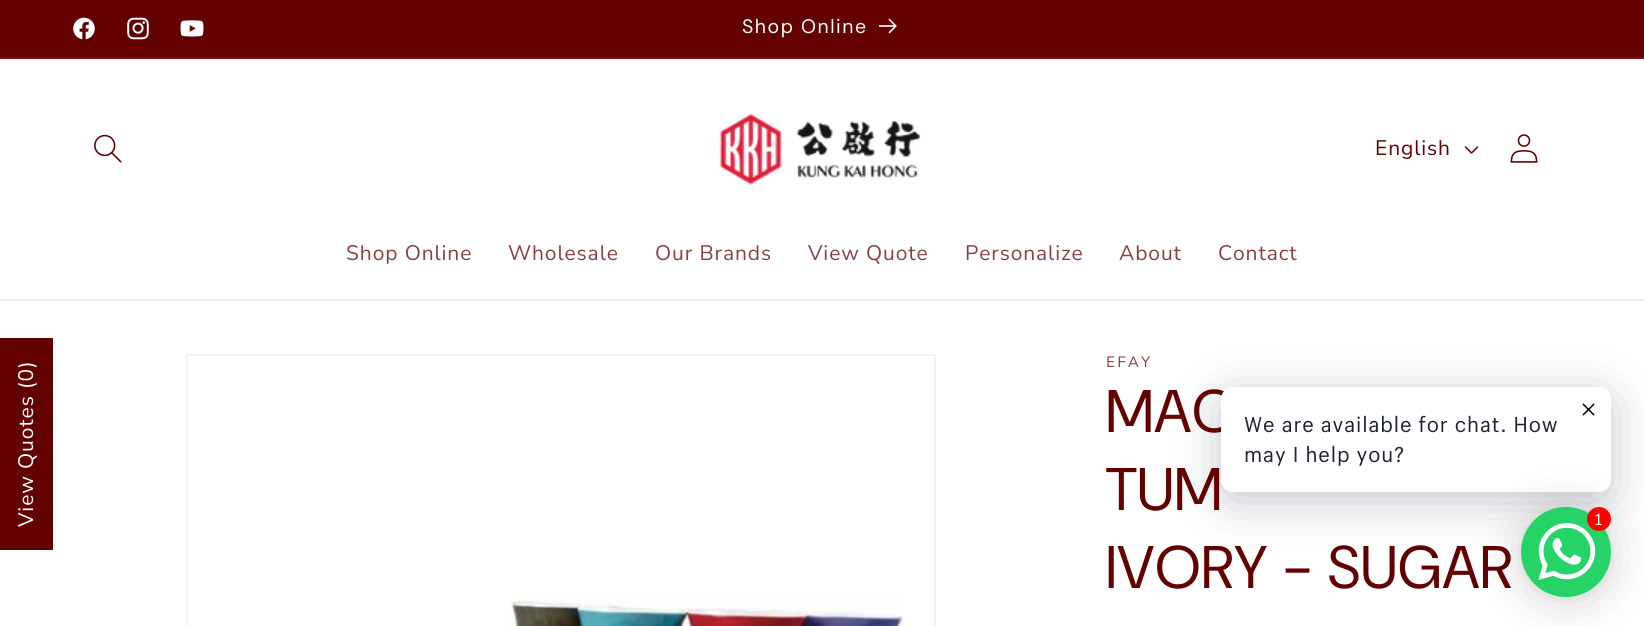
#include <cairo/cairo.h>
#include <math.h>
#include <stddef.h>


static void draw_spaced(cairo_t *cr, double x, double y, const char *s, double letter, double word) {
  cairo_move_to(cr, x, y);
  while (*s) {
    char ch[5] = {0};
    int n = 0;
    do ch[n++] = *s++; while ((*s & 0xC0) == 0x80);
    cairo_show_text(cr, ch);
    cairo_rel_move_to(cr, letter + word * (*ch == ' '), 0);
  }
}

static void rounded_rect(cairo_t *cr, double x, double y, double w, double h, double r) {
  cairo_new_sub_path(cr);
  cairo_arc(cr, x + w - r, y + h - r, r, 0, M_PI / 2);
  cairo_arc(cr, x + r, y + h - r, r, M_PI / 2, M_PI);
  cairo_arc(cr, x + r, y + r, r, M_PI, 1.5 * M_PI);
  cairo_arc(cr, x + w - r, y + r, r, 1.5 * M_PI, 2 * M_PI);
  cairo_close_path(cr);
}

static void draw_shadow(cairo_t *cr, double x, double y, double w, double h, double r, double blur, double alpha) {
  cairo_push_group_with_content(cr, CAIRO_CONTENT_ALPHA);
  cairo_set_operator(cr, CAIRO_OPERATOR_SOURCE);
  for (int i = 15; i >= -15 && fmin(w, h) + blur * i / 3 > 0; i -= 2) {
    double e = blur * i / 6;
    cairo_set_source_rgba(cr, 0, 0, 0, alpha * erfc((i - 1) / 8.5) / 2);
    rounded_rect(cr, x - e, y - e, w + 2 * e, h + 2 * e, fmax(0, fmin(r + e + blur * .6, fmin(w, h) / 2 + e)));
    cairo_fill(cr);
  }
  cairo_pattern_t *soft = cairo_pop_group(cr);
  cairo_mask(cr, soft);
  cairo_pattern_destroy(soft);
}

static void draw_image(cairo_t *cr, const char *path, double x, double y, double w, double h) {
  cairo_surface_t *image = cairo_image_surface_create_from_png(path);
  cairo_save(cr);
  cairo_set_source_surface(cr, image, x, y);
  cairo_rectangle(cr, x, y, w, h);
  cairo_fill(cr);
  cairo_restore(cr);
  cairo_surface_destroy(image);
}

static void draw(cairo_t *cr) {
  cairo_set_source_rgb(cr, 1, 1, 1);
  cairo_paint(cr);
  cairo_set_source_rgb(cr, 99 / 255.0, 0, 0);
  cairo_rectangle(cr, 0, 0, 1644, 57);
  cairo_fill(cr);
  cairo_set_source_rgb(cr, 111 / 255.0, 20 / 255.0, 20 / 255.0);
  cairo_rectangle(cr, 0, 57, 1644, 2);
  cairo_fill(cr);
  draw_image(cr, "images/1.png", 73, 17, 22, 23);
  draw_image(cr, "images/2.png", 127, 17, 22, 23);
  draw_image(cr, "images/3.png", 180, 20, 24, 17);
  draw_image(cr, "images/4.png", 879, 18, 18, 16);
  cairo_set_source_rgb(cr, 243 / 255.0, 235 / 255.0, 235 / 255.0);
  cairo_rectangle(cr, 0, 299, 1644, 2);
  cairo_fill(cr);
  draw_image(cr, "images/5.png", 94, 134, 28, 29);
  draw_image(cr, "images/6.png", 719, 113, 202, 72);
  draw_image(cr, "images/7.png", 1464, 146, 15, 8);
  draw_image(cr, "images/8.png", 1510, 134, 28, 29);
  cairo_set_source_rgb(cr, 99 / 255.0, 0, 0);
  cairo_rectangle(cr, 0, 338, 53, 212);
  cairo_fill(cr);
  cairo_rectangle(cr, 187, 355, 748, 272);
  cairo_set_source_rgb(cr, 247 / 255.0, 242 / 255.0, 242 / 255.0);
  cairo_stroke(cr);
  draw_image(cr, "images/9.png", 510, 598, 394, 28);
  cairo_set_source_rgb(cr, 0, 18 / 255.0, 46 / 255.0);
  draw_shadow(cr, 1221, 396, 390, 105, 12, 24, 0.24);
  cairo_set_source_rgb(cr, 0, 0, 0);
  draw_shadow(cr, 1521, 509, 90, 90, 45, 4.5, 0.06);
  cairo_select_font_face(cr, "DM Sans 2", CAIRO_FONT_SLANT_NORMAL, CAIRO_FONT_WEIGHT_NORMAL);
  cairo_set_font_size(cr, 19.5);
  cairo_set_source_rgb(cr, 1, 1, 1);
  draw_spaced(cr, 742, 33, "Shop Online", 1.5, 0);
  cairo_select_font_face(cr, "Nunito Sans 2", CAIRO_FONT_SLANT_NORMAL, CAIRO_FONT_WEIGHT_NORMAL);
  cairo_set_font_size(cr, 21);
  cairo_set_source_rgb(cr, 99 / 255.0, 0, 0);
  draw_spaced(cr, 1375, 155, "English", 0.9, 0);
  cairo_set_source_rgb(cr, 138 / 255.0, 64 / 255.0, 64 / 255.0);
  draw_spaced(cr, 346, 260, "Shop Online", 0.9, 0);
  draw_spaced(cr, 508, 260, "Wholesale", 0.9, 0);
  draw_spaced(cr, 655, 260, "Our Brands", 0.9, 0);
  draw_spaced(cr, 808, 260, "View Quote", 0.9, 0);
  draw_spaced(cr, 965, 260, "Personalize", 0.9, 0);
  draw_spaced(cr, 1119, 260, "About", 0.9, 0);
  draw_spaced(cr, 1218, 260, "Contact", 0.9, 0);
  cairo_set_source_rgb(cr, 1, 1, 1);
  cairo_save(cr);
  cairo_translate(cr, 33, 527);
  cairo_rotate(cr, -90 * M_PI / 180);
  draw_spaced(cr, 0, 0, "View Quotes (0)", 0.9, 0);
  cairo_restore(cr);
  cairo_select_font_face(cr, "Nunito Sans", CAIRO_FONT_SLANT_NORMAL, CAIRO_FONT_WEIGHT_NORMAL);
  cairo_set_font_size(cr, 15);
  cairo_set_source_rgb(cr, 138 / 255.0, 64 / 255.0, 64 / 255.0);
  draw_spaced(cr, 1106, 367, "EFAY", 2, 0);
  cairo_select_font_face(cr, "DM Sans", CAIRO_FONT_SLANT_NORMAL, CAIRO_FONT_WEIGHT_NORMAL);
  cairo_set_font_size(cr, 60);
  cairo_set_source_rgb(cr, 99 / 255.0, 0, 0);
  draw_spaced(cr, 1106, 432, "MAC", 0.9, 0);
  draw_spaced(cr, 1106, 510, "TUM", 0.9, 0);
  draw_spaced(cr, 1106, 588, "IVORY - SUGAR", 0.9, 0);
  cairo_set_source_rgb(cr, 1, 1, 1);
  rounded_rect(cr, 1221, 387, 390, 105, 12);
  cairo_fill(cr);
  draw_image(cr, "images/10.png", 1582, 403, 13, 13);
  cairo_select_font_face(cr, "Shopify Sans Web", CAIRO_FONT_SLANT_NORMAL, CAIRO_FONT_WEIGHT_NORMAL);
  cairo_set_font_size(cr, 21);
  cairo_set_source_rgb(cr, 30 / 255.0, 36 / 255.0, 51 / 255.0);
  draw_spaced(cr, 1244, 432, "We are available for chat. How", 0.9, 0);
  draw_spaced(cr, 1244, 462, "may I help you?", 0.9, 0);
  cairo_set_source_rgb(cr, 0, 0, 0);
  draw_shadow(cr, 1521, 510, 90, 90, 45, 24, 0.16);
  cairo_set_source_rgb(cr, 37 / 255.0, 211 / 255.0, 102 / 255.0);
  cairo_arc(cr, 1566, 552, 45, 0, 2 * M_PI);
  cairo_fill(cr);
  draw_image(cr, "images/11.png", 1538, 523, 58, 57);
  cairo_set_source_rgb(cr, 1, 0, 0);
  cairo_arc(cr, 1599, 519, 12, 0, 2 * M_PI);
  cairo_fill(cr);
  cairo_set_font_size(cr, 16);
  cairo_set_source_rgb(cr, 1, 1, 1);
  draw_spaced(cr, 1595, 525, "1", 0.9, 0);
}

int main(void) {
  cairo_surface_t *surface = cairo_image_surface_create(CAIRO_FORMAT_RGB24, 1644, 626);
  cairo_t *cr = cairo_create(surface);
  cairo_font_options_t *options = cairo_font_options_create();
  cairo_font_options_set_hint_metrics(options, CAIRO_HINT_METRICS_OFF);
  cairo_font_options_set_hint_style(options, CAIRO_HINT_STYLE_NONE);
  cairo_set_font_options(cr, options);
  cairo_set_miter_limit(cr, 4);
  draw(cr);
  cairo_surface_write_to_png(surface, "out.png");
  cairo_font_options_destroy(options);
  cairo_destroy(cr);
  cairo_surface_destroy(surface);
  return 0;
}
